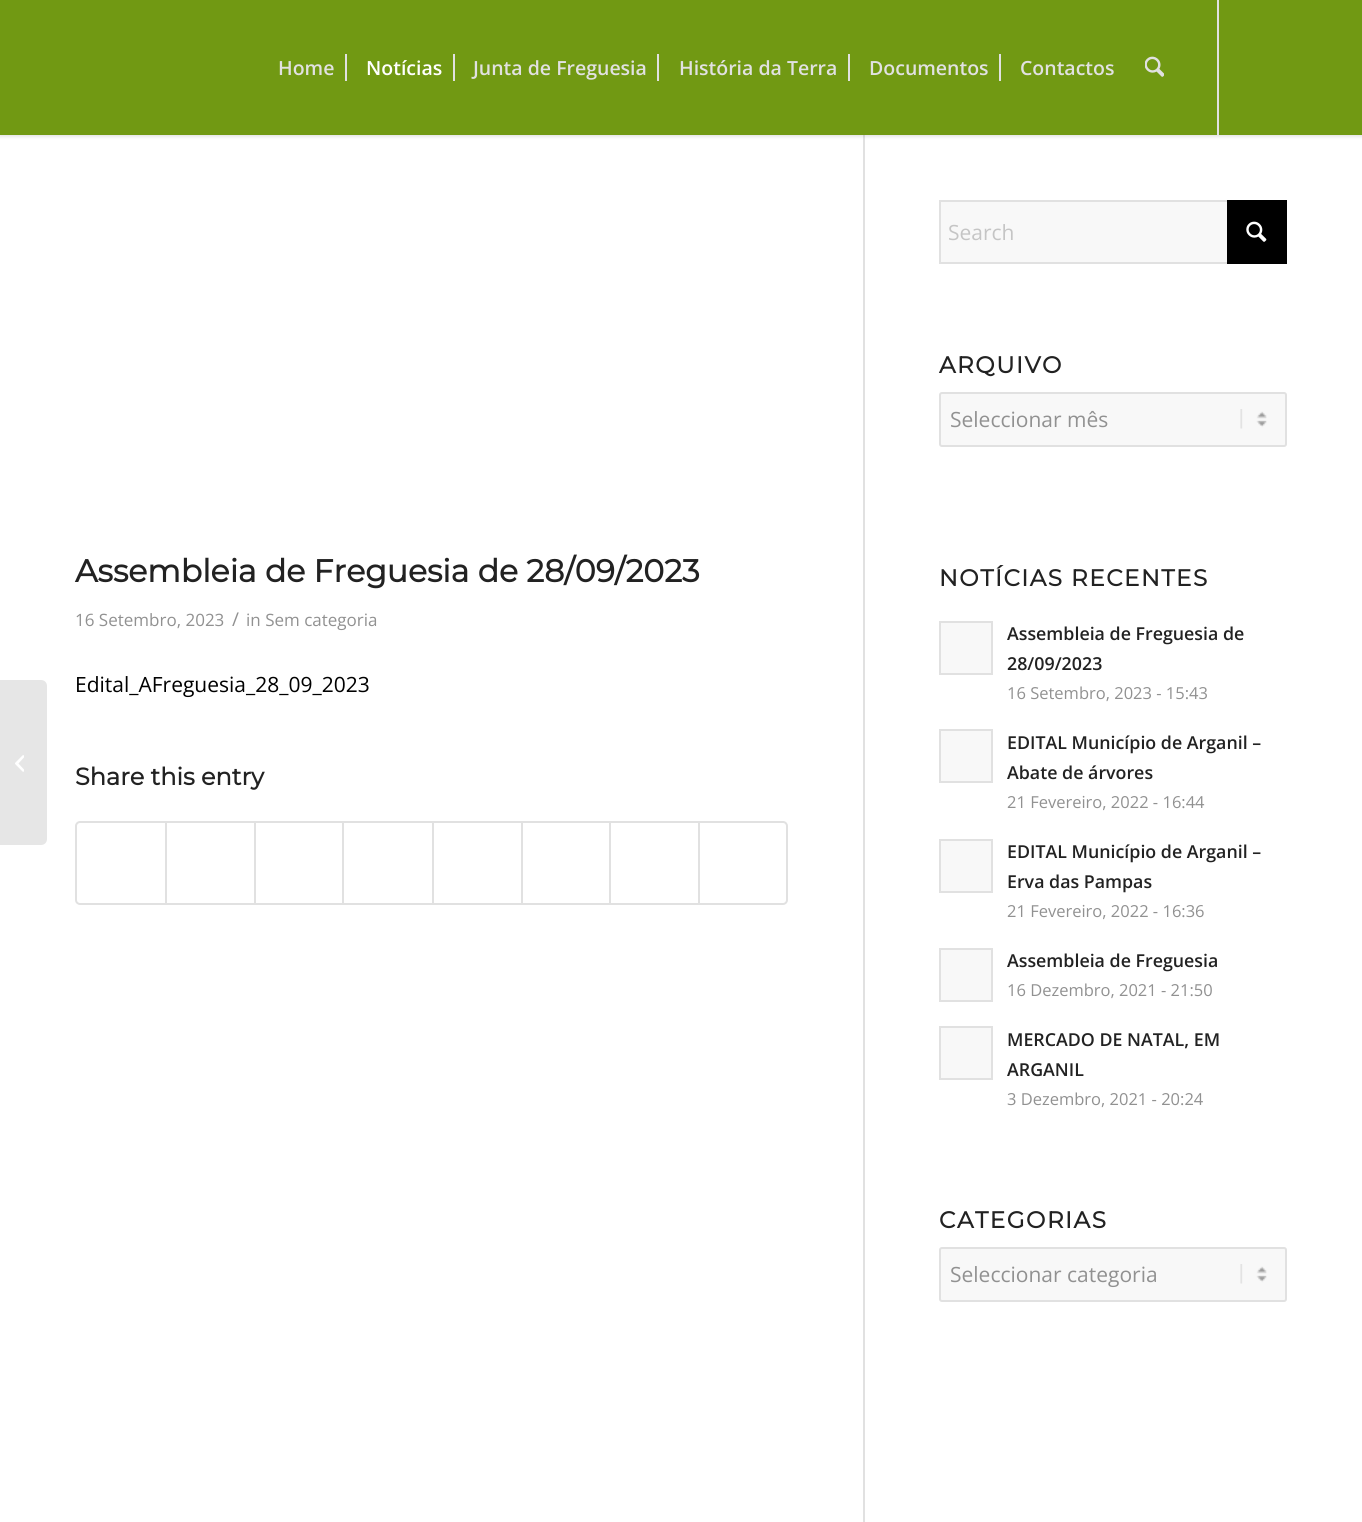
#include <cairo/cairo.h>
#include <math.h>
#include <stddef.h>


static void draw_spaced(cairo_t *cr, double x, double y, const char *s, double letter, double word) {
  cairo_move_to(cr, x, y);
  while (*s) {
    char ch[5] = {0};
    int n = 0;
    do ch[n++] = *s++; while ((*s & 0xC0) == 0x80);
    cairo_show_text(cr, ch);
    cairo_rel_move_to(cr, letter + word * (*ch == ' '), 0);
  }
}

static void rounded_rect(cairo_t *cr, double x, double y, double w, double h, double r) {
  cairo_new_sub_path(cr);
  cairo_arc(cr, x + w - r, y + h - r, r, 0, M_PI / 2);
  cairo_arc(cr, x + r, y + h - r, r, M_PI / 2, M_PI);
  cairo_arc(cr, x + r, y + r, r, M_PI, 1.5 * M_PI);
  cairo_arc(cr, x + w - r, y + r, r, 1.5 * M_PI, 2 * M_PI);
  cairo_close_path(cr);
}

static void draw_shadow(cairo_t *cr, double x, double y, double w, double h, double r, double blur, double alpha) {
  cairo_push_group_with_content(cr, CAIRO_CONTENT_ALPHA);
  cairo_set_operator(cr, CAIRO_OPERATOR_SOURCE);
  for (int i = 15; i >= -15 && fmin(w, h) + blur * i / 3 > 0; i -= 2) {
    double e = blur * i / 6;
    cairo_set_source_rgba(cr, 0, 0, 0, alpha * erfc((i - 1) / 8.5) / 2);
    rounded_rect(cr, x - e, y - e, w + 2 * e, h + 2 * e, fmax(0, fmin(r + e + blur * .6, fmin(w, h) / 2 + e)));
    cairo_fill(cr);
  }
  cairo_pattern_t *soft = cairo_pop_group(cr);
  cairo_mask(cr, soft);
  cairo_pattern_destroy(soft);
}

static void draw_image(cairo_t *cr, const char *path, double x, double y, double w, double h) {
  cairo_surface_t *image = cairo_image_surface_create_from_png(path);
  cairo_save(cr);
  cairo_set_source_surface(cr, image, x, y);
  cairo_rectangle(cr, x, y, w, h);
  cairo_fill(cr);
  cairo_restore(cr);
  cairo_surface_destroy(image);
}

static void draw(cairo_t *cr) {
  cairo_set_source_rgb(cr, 1, 1, 1);
  cairo_paint(cr);
  cairo_set_source_rgb(cr, 225 / 255.0, 225 / 255.0, 225 / 255.0);
  cairo_rectangle(cr, 863, 135, 2, 1387);
  cairo_fill(cr);
  cairo_set_source_rgb(cr, 0, 0, 0);
  draw_shadow(cr, -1, -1, 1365, 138, 0, 1.5, 0.1);
  cairo_set_source_rgb(cr, 113 / 255.0, 153 / 255.0, 19 / 255.0);
  cairo_rectangle(cr, 0, 0, 1362, 135);
  cairo_fill(cr);
  cairo_set_source_rgb(cr, 225 / 255.0, 225 / 255.0, 225 / 255.0);
  cairo_rectangle(cr, 1217, 0, 2, 135);
  cairo_fill(cr);
  cairo_rectangle(cr, 345, 54, 2, 27);
  cairo_fill(cr);
  cairo_rectangle(cr, 453, 54, 2, 27);
  cairo_fill(cr);
  cairo_rectangle(cr, 657, 54, 2, 27);
  cairo_fill(cr);
  cairo_rectangle(cr, 848, 54, 2, 27);
  cairo_fill(cr);
  cairo_rectangle(cr, 999, 54, 2, 27);
  cairo_fill(cr);
  draw_image(cr, "images/1.png", 1145, 56, 19, 21);
  cairo_set_source_rgb(cr, 230 / 255.0, 230 / 255.0, 230 / 255.0);
  cairo_new_path(cr);
  cairo_move_to(cr, 0, 680);
  cairo_line_to(cr, 41, 680);
  cairo_curve_to(cr, 44.5, 680, 47, 682.5, 47, 686);
  cairo_line_to(cr, 47, 839);
  cairo_curve_to(cr, 47, 842.5, 44.5, 845, 41, 845);
  cairo_line_to(cr, 0, 845);
  cairo_close_path(cr);
  cairo_fill(cr);
  draw_image(cr, "images/2.png", 15, 755, 9, 17);
  rounded_rect(cr, 76, 822, 711, 82, 4);
  cairo_set_source_rgb(cr, 225 / 255.0, 225 / 255.0, 225 / 255.0);
  cairo_stroke(cr);
  cairo_rectangle(cr, 165, 822, 2, 81);
  cairo_fill(cr);
  cairo_rectangle(cr, 254, 822, 2, 81);
  cairo_fill(cr);
  cairo_rectangle(cr, 342, 822, 2, 81);
  cairo_fill(cr);
  cairo_rectangle(cr, 432, 822, 2, 81);
  cairo_fill(cr);
  cairo_rectangle(cr, 521, 822, 2, 81);
  cairo_fill(cr);
  cairo_rectangle(cr, 609, 822, 2, 81);
  cairo_fill(cr);
  cairo_rectangle(cr, 698, 822, 2, 81);
  cairo_fill(cr);
  cairo_set_source_rgb(cr, 248 / 255.0, 248 / 255.0, 248 / 255.0);
  cairo_rectangle(cr, 941, 202, 286, 60);
  cairo_fill(cr);
  cairo_rectangle(cr, 940, 201, 346, 62);
  cairo_set_source_rgb(cr, 225 / 255.0, 225 / 255.0, 225 / 255.0);
  cairo_stroke(cr);
  cairo_set_source_rgb(cr, 0, 0, 0);
  cairo_rectangle(cr, 1227, 200, 60, 64);
  cairo_fill(cr);
  draw_image(cr, "images/3.png", 1246, 221, 21, 21);
  cairo_set_source_rgb(cr, 248 / 255.0, 248 / 255.0, 248 / 255.0);
  rounded_rect(cr, 939, 392, 348, 55, 3);
  cairo_fill(cr);
  draw_image(cr, "images/4.png", 1240, 409, 27, 20);
  rounded_rect(cr, 940, 393, 346, 53, 2);
  cairo_set_source_rgb(cr, 225 / 255.0, 225 / 255.0, 225 / 255.0);
  cairo_stroke(cr);
  cairo_set_source_rgb(cr, 248 / 255.0, 248 / 255.0, 248 / 255.0);
  cairo_rectangle(cr, 940, 622, 52, 52);
  cairo_fill_preserve(cr);
  cairo_set_source_rgb(cr, 225 / 255.0, 225 / 255.0, 225 / 255.0);
  cairo_stroke(cr);
  cairo_set_source_rgb(cr, 248 / 255.0, 248 / 255.0, 248 / 255.0);
  cairo_rectangle(cr, 940, 730, 52, 52);
  cairo_fill_preserve(cr);
  cairo_set_source_rgb(cr, 225 / 255.0, 225 / 255.0, 225 / 255.0);
  cairo_stroke(cr);
  cairo_set_source_rgb(cr, 248 / 255.0, 248 / 255.0, 248 / 255.0);
  cairo_rectangle(cr, 940, 840, 52, 52);
  cairo_fill_preserve(cr);
  cairo_set_source_rgb(cr, 225 / 255.0, 225 / 255.0, 225 / 255.0);
  cairo_stroke(cr);
  cairo_set_source_rgb(cr, 248 / 255.0, 248 / 255.0, 248 / 255.0);
  cairo_rectangle(cr, 940, 949, 52, 52);
  cairo_fill_preserve(cr);
  cairo_set_source_rgb(cr, 225 / 255.0, 225 / 255.0, 225 / 255.0);
  cairo_stroke(cr);
  cairo_set_source_rgb(cr, 248 / 255.0, 248 / 255.0, 248 / 255.0);
  cairo_rectangle(cr, 940, 1027, 52, 52);
  cairo_fill_preserve(cr);
  cairo_set_source_rgb(cr, 225 / 255.0, 225 / 255.0, 225 / 255.0);
  cairo_stroke(cr);
  cairo_set_source_rgb(cr, 248 / 255.0, 248 / 255.0, 248 / 255.0);
  rounded_rect(cr, 939, 1247, 348, 55, 3);
  cairo_fill(cr);
  draw_image(cr, "images/4.png", 1240, 1264, 27, 20);
  rounded_rect(cr, 940, 1248, 346, 53, 2);
  cairo_set_source_rgb(cr, 225 / 255.0, 225 / 255.0, 225 / 255.0);
  cairo_stroke(cr);
  cairo_select_font_face(cr, "Open Sans SemiBold", CAIRO_FONT_SLANT_NORMAL, CAIRO_FONT_WEIGHT_NORMAL);
  cairo_set_font_size(cr, 19.5);
  cairo_move_to(cr, 278, 75);
  cairo_show_text(cr, "Home");
  cairo_set_source_rgb(cr, 1, 1, 1);
  cairo_move_to(cr, 366, 75);
  cairo_show_text(cr, "Notícias");
  cairo_set_source_rgb(cr, 225 / 255.0, 225 / 255.0, 225 / 255.0);
  cairo_move_to(cr, 473, 75);
  cairo_show_text(cr, "Junta de Freguesia");
  cairo_move_to(cr, 679, 75);
  cairo_show_text(cr, "História da Terra");
  cairo_move_to(cr, 869, 75);
  cairo_show_text(cr, "Documentos");
  cairo_move_to(cr, 1020, 75);
  cairo_show_text(cr, "Contactos");
  cairo_select_font_face(cr, "Montserrat", CAIRO_FONT_SLANT_NORMAL, CAIRO_FONT_WEIGHT_BOLD);
  cairo_set_font_size(cr, 31.5);
  cairo_set_source_rgb(cr, 34 / 255.0, 34 / 255.0, 34 / 255.0);
  cairo_move_to(cr, 75, 582);
  cairo_show_text(cr, "Assembleia de Freguesia de 28/09/2023");
  cairo_select_font_face(cr, "Open Sans", CAIRO_FONT_SLANT_NORMAL, CAIRO_FONT_WEIGHT_NORMAL);
  cairo_set_font_size(cr, 17);
  cairo_set_source_rgb(cr, 145 / 255.0, 145 / 255.0, 145 / 255.0);
  cairo_move_to(cr, 75, 626);
  cairo_show_text(cr, "16 Setembro, 2023");
  cairo_set_font_size(cr, 19);
  cairo_move_to(cr, 232, 626);
  cairo_show_text(cr, "/");
  cairo_set_font_size(cr, 17);
  cairo_move_to(cr, 246, 626);
  cairo_show_text(cr, "in Sem categoria");
  cairo_set_font_size(cr, 21);
  cairo_set_source_rgb(cr, 0, 0, 0);
  cairo_move_to(cr, 75, 692);
  cairo_show_text(cr, "Edital_AFreguesia_28_09_2023");
  cairo_select_font_face(cr, "Montserrat", CAIRO_FONT_SLANT_NORMAL, CAIRO_FONT_WEIGHT_BOLD);
  cairo_set_font_size(cr, 24);
  cairo_set_source_rgb(cr, 34 / 255.0, 34 / 255.0, 34 / 255.0);
  cairo_move_to(cr, 75, 785);
  cairo_show_text(cr, "Share this entry");
  cairo_select_font_face(cr, "Open Sans", CAIRO_FONT_SLANT_NORMAL, CAIRO_FONT_WEIGHT_NORMAL);
  cairo_set_font_size(cr, 21);
  cairo_set_source_rgb(cr, 197 / 255.0, 197 / 255.0, 197 / 255.0);
  cairo_move_to(cr, 948, 240);
  cairo_show_text(cr, "Search");
  cairo_select_font_face(cr, "Montserrat", CAIRO_FONT_SLANT_NORMAL, CAIRO_FONT_WEIGHT_BOLD);
  cairo_set_font_size(cr, 23.1);
  cairo_set_source_rgb(cr, 34 / 255.0, 34 / 255.0, 34 / 255.0);
  draw_spaced(cr, 939, 373, "ARQUIVO", 1.5, 0);
  cairo_select_font_face(cr, "Open Sans", CAIRO_FONT_SLANT_NORMAL, CAIRO_FONT_WEIGHT_NORMAL);
  cairo_set_font_size(cr, 21);
  cairo_set_source_rgb(cr, 145 / 255.0, 145 / 255.0, 145 / 255.0);
  cairo_move_to(cr, 950, 427);
  cairo_show_text(cr, "Seleccionar mês");
  cairo_select_font_face(cr, "Montserrat", CAIRO_FONT_SLANT_NORMAL, CAIRO_FONT_WEIGHT_BOLD);
  cairo_set_font_size(cr, 23.1);
  cairo_set_source_rgb(cr, 34 / 255.0, 34 / 255.0, 34 / 255.0);
  draw_spaced(cr, 939, 586, "NOTÍCIAS RECENTES", 1.5, 0);
  cairo_select_font_face(cr, "Open Sans SemiBold", CAIRO_FONT_SLANT_NORMAL, CAIRO_FONT_WEIGHT_NORMAL);
  cairo_set_font_size(cr, 17.8);
  cairo_move_to(cr, 1007, 640);
  cairo_show_text(cr, "Assembleia de Freguesia de");
  cairo_move_to(cr, 1007, 670);
  cairo_show_text(cr, "28/09/2023");
  cairo_select_font_face(cr, "Open Sans", CAIRO_FONT_SLANT_NORMAL, CAIRO_FONT_WEIGHT_NORMAL);
  cairo_set_font_size(cr, 16.5);
  cairo_set_source_rgb(cr, 145 / 255.0, 145 / 255.0, 145 / 255.0);
  cairo_move_to(cr, 1007, 699);
  cairo_show_text(cr, "16 Setembro, 2023 - 15:43");
  cairo_select_font_face(cr, "Open Sans SemiBold", CAIRO_FONT_SLANT_NORMAL, CAIRO_FONT_WEIGHT_NORMAL);
  cairo_set_font_size(cr, 17.8);
  cairo_set_source_rgb(cr, 34 / 255.0, 34 / 255.0, 34 / 255.0);
  cairo_move_to(cr, 1007, 749);
  cairo_show_text(cr, "EDITAL Município de Arganil –");
  cairo_move_to(cr, 1007, 779);
  cairo_show_text(cr, "Abate de árvores");
  cairo_select_font_face(cr, "Open Sans", CAIRO_FONT_SLANT_NORMAL, CAIRO_FONT_WEIGHT_NORMAL);
  cairo_set_font_size(cr, 16.5);
  cairo_set_source_rgb(cr, 145 / 255.0, 145 / 255.0, 145 / 255.0);
  cairo_move_to(cr, 1007, 808);
  cairo_show_text(cr, "21 Fevereiro, 2022 - 16:44");
  cairo_select_font_face(cr, "Open Sans SemiBold", CAIRO_FONT_SLANT_NORMAL, CAIRO_FONT_WEIGHT_NORMAL);
  cairo_set_font_size(cr, 17.8);
  cairo_set_source_rgb(cr, 34 / 255.0, 34 / 255.0, 34 / 255.0);
  cairo_move_to(cr, 1007, 858);
  cairo_show_text(cr, "EDITAL Município de Arganil –");
  cairo_move_to(cr, 1007, 888);
  cairo_show_text(cr, "Erva das Pampas");
  cairo_select_font_face(cr, "Open Sans", CAIRO_FONT_SLANT_NORMAL, CAIRO_FONT_WEIGHT_NORMAL);
  cairo_set_font_size(cr, 16.5);
  cairo_set_source_rgb(cr, 145 / 255.0, 145 / 255.0, 145 / 255.0);
  cairo_move_to(cr, 1007, 917);
  cairo_show_text(cr, "21 Fevereiro, 2022 - 16:36");
  cairo_select_font_face(cr, "Open Sans SemiBold", CAIRO_FONT_SLANT_NORMAL, CAIRO_FONT_WEIGHT_NORMAL);
  cairo_set_font_size(cr, 17.8);
  cairo_set_source_rgb(cr, 34 / 255.0, 34 / 255.0, 34 / 255.0);
  cairo_move_to(cr, 1007, 967);
  cairo_show_text(cr, "Assembleia de Freguesia");
  cairo_select_font_face(cr, "Open Sans", CAIRO_FONT_SLANT_NORMAL, CAIRO_FONT_WEIGHT_NORMAL);
  cairo_set_font_size(cr, 16.5);
  cairo_set_source_rgb(cr, 145 / 255.0, 145 / 255.0, 145 / 255.0);
  cairo_move_to(cr, 1007, 996);
  cairo_show_text(cr, "16 Dezembro, 2021 - 21:50");
  cairo_select_font_face(cr, "Open Sans SemiBold", CAIRO_FONT_SLANT_NORMAL, CAIRO_FONT_WEIGHT_NORMAL);
  cairo_set_font_size(cr, 17.8);
  cairo_set_source_rgb(cr, 34 / 255.0, 34 / 255.0, 34 / 255.0);
  cairo_move_to(cr, 1007, 1046);
  cairo_show_text(cr, "MERCADO DE NATAL, EM");
  cairo_move_to(cr, 1007, 1076);
  cairo_show_text(cr, "ARGANIL");
  cairo_select_font_face(cr, "Open Sans", CAIRO_FONT_SLANT_NORMAL, CAIRO_FONT_WEIGHT_NORMAL);
  cairo_set_font_size(cr, 16.5);
  cairo_set_source_rgb(cr, 145 / 255.0, 145 / 255.0, 145 / 255.0);
  cairo_move_to(cr, 1007, 1105);
  cairo_show_text(cr, "3 Dezembro, 2021 - 20:24");
  cairo_select_font_face(cr, "Montserrat", CAIRO_FONT_SLANT_NORMAL, CAIRO_FONT_WEIGHT_BOLD);
  cairo_set_font_size(cr, 23.1);
  cairo_set_source_rgb(cr, 34 / 255.0, 34 / 255.0, 34 / 255.0);
  draw_spaced(cr, 939, 1228, "CATEGORIAS", 1.5, 0);
  cairo_select_font_face(cr, "Open Sans", CAIRO_FONT_SLANT_NORMAL, CAIRO_FONT_WEIGHT_NORMAL);
  cairo_set_font_size(cr, 21);
  cairo_set_source_rgb(cr, 145 / 255.0, 145 / 255.0, 145 / 255.0);
  cairo_move_to(cr, 950, 1282);
  cairo_show_text(cr, "Seleccionar categoria");
}

int main(void) {
  cairo_surface_t *surface = cairo_image_surface_create(CAIRO_FORMAT_RGB24, 1362, 1522);
  cairo_t *cr = cairo_create(surface);
  cairo_font_options_t *options = cairo_font_options_create();
  cairo_font_options_set_hint_metrics(options, CAIRO_HINT_METRICS_OFF);
  cairo_font_options_set_hint_style(options, CAIRO_HINT_STYLE_NONE);
  cairo_set_font_options(cr, options);
  cairo_set_miter_limit(cr, 4);
  draw(cr);
  cairo_surface_write_to_png(surface, "out.png");
  cairo_font_options_destroy(options);
  cairo_destroy(cr);
  cairo_surface_destroy(surface);
  return 0;
}
